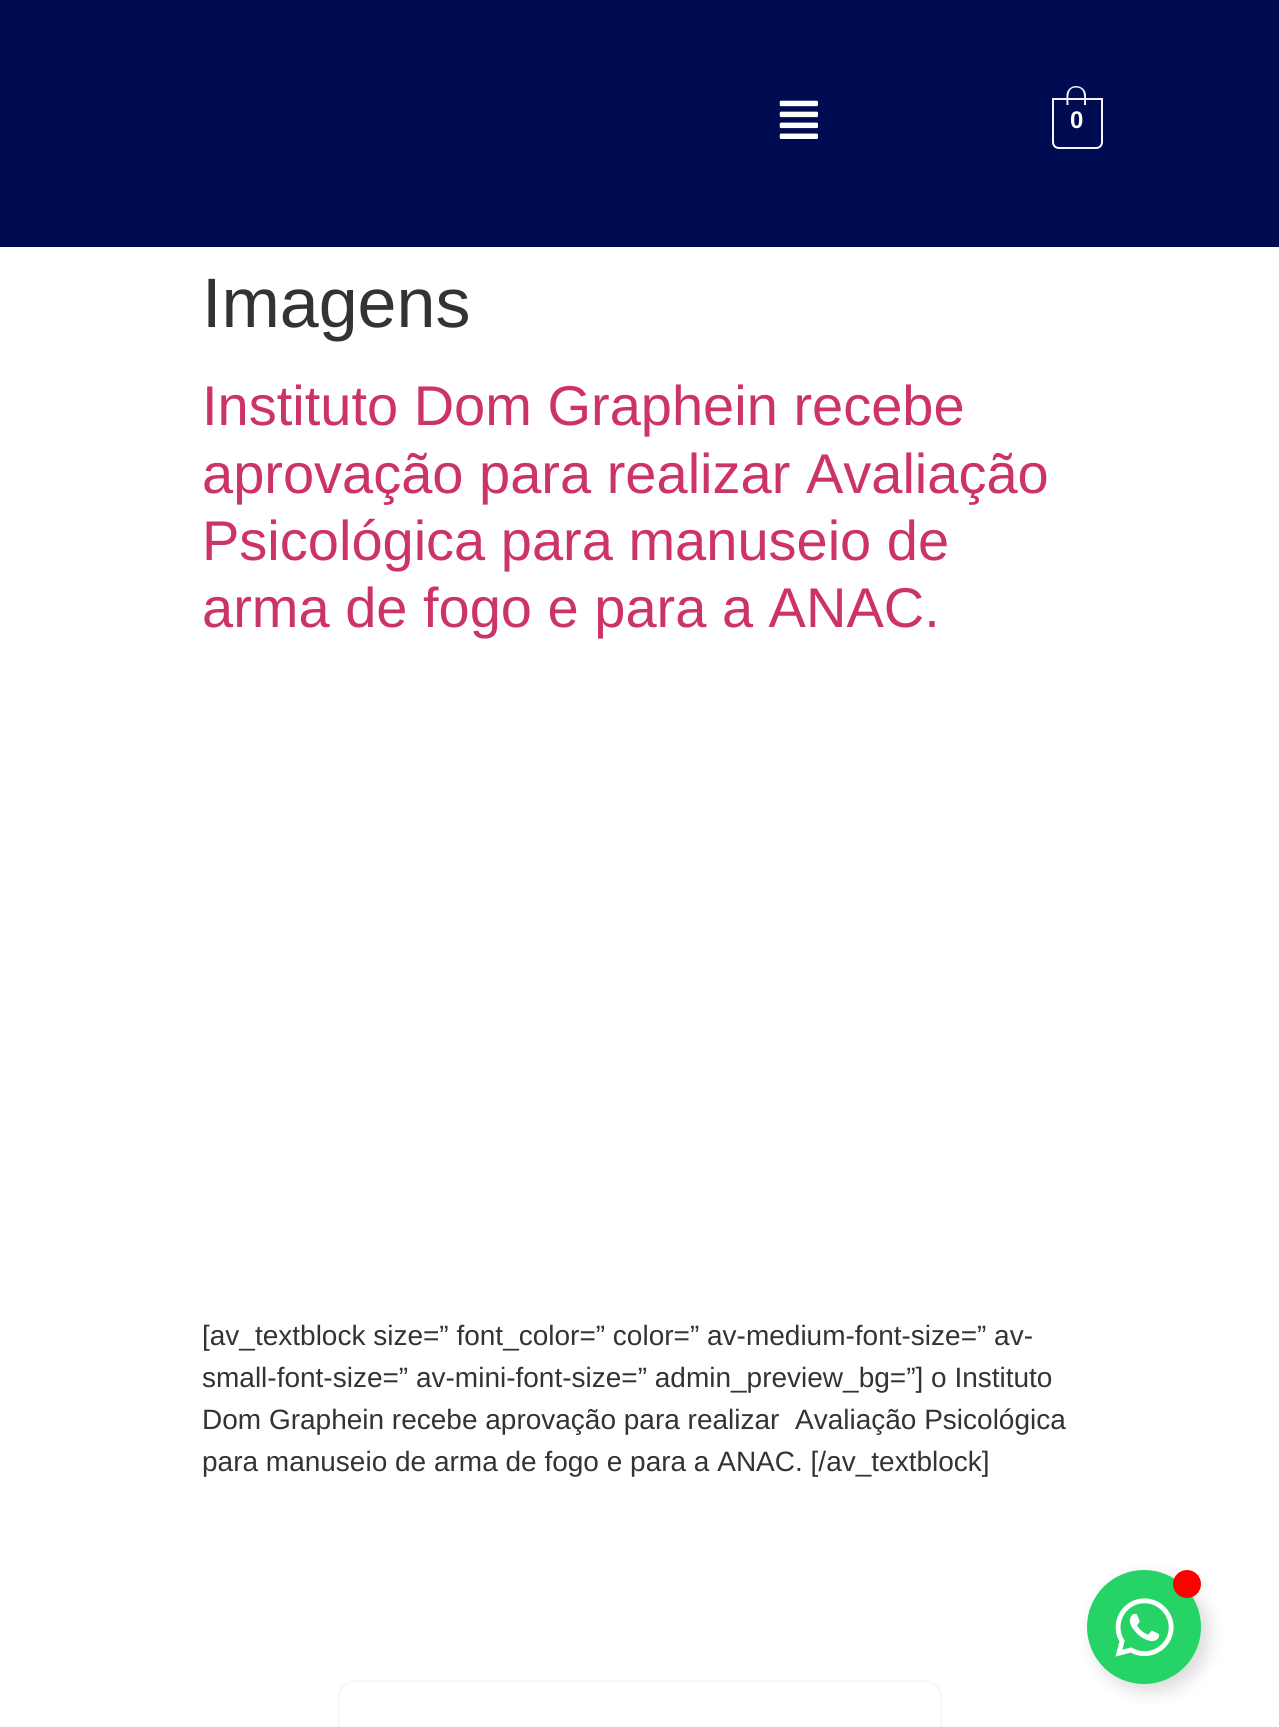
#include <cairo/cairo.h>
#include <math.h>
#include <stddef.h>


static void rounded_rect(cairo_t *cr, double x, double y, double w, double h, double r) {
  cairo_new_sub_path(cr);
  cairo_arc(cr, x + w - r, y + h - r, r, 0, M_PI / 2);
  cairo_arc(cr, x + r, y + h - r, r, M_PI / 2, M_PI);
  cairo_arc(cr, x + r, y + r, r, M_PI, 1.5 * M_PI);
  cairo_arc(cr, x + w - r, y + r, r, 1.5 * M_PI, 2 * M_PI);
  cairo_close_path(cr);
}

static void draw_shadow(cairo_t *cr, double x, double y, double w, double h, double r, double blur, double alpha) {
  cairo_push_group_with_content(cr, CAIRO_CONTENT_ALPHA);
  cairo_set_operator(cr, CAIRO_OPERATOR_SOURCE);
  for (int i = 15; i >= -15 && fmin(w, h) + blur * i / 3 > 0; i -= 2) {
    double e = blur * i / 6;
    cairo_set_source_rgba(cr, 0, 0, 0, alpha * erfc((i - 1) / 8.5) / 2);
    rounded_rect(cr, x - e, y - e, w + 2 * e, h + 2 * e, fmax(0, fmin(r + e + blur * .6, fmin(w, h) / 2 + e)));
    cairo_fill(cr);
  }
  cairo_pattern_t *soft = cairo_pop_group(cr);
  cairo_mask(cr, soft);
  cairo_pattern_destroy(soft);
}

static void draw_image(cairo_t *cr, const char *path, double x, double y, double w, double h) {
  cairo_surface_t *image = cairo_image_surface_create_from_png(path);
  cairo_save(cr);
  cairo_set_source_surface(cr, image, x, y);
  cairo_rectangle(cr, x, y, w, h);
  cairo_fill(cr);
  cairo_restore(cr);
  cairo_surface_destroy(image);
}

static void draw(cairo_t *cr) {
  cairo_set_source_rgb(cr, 1, 1, 1);
  cairo_paint(cr);
  cairo_set_source_rgb(cr, 0, 12 / 255.0, 82 / 255.0);
  cairo_rectangle(cr, 0, 0, 1279, 247);
  cairo_fill(cr);
  draw_image(cr, "images/1.png", 779, 100, 39, 39);
  cairo_new_path(cr);
  cairo_move_to(cr, 1053, 99);
  cairo_line_to(cr, 1102, 99);
  cairo_line_to(cr, 1102, 142);
  cairo_curve_to(cr, 1102, 145.5, 1099.5, 148, 1096, 148);
  cairo_line_to(cr, 1059, 148);
  cairo_curve_to(cr, 1055.5, 148, 1053, 145.5, 1053, 142);
  cairo_close_path(cr);
  cairo_set_source_rgb(cr, 249 / 255.0, 245 / 255.0, 1);
  cairo_stroke(cr);
  cairo_set_fill_rule(cr, CAIRO_FILL_RULE_EVEN_ODD);
  cairo_new_path(cr);
  cairo_move_to(cr, 1076, 86);
  cairo_curve_to(cr, 1081.5, 86, 1086, 90, 1086, 95.5);
  cairo_line_to(cr, 1086, 105);
  cairo_line_to(cr, 1066.5, 105);
  cairo_line_to(cr, 1066.5, 95.5);
  cairo_curve_to(cr, 1066.5, 90, 1071, 86, 1076, 86);
  cairo_close_path(cr);
  cairo_move_to(cr, 1076, 87.5);
  cairo_curve_to(cr, 1086, 87.5, 1084, 98.5, 1084, 105);
  cairo_line_to(cr, 1068.5, 105);
  cairo_curve_to(cr, 1068.5, 98.5, 1066.5, 87.5, 1076, 87.5);
  cairo_close_path(cr);
  cairo_fill(cr);
  rounded_rect(cr, 339, 1681, 602, 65, 17);
  cairo_set_source_rgb(cr, 246 / 255.0, 247 / 255.0, 249 / 255.0);
  cairo_stroke(cr);
  cairo_set_source_rgb(cr, 0, 0, 0);
  draw_shadow(cr, 1094, 1577, 114, 114, 57, 9, 0.15);
  cairo_set_source_rgb(cr, 37 / 255.0, 211 / 255.0, 102 / 255.0);
  cairo_arc(cr, 1144, 1627, 57, 0, 2 * M_PI);
  cairo_fill(cr);
  cairo_set_source_rgb(cr, 1, 0, 0);
  cairo_arc(cr, 1187, 1584, 14, 0, 2 * M_PI);
  cairo_fill(cr);
  draw_image(cr, "images/2.png", 1115, 1598, 59, 59);
  cairo_select_font_face(cr, "Liberation Sans", CAIRO_FONT_SLANT_NORMAL, CAIRO_FONT_WEIGHT_BOLD);
  cairo_set_font_size(cr, 24);
  cairo_set_source_rgb(cr, 1, 1, 1);
  cairo_move_to(cr, 1070, 128);
  cairo_show_text(cr, "0");
  cairo_select_font_face(cr, "Liberation Sans", CAIRO_FONT_SLANT_NORMAL, CAIRO_FONT_WEIGHT_NORMAL);
  cairo_set_font_size(cr, 70);
  cairo_set_source_rgb(cr, 51 / 255.0, 51 / 255.0, 51 / 255.0);
  cairo_move_to(cr, 202, 327);
  cairo_show_text(cr, "Imagens");
  cairo_set_font_size(cr, 56);
  cairo_set_source_rgb(cr, 204 / 255.0, 51 / 255.0, 102 / 255.0);
  cairo_move_to(cr, 202, 425);
  cairo_show_text(cr, "Instituto Dom Graphein recebe");
  cairo_move_to(cr, 202, 493);
  cairo_show_text(cr, "aprovação para realizar Avaliação");
  cairo_move_to(cr, 202, 560);
  cairo_show_text(cr, "Psicológica para manuseio de");
  cairo_move_to(cr, 202, 627);
  cairo_show_text(cr, "arma de fogo e para a ANAC.");
  cairo_set_font_size(cr, 28);
  cairo_set_source_rgb(cr, 51 / 255.0, 51 / 255.0, 51 / 255.0);
  cairo_move_to(cr, 202, 1345);
  cairo_show_text(cr, "[av_textblock size=” font_color=” color=” av-medium-font-size=” av-");
  cairo_move_to(cr, 202, 1387);
  cairo_show_text(cr, "small-font-size=” av-mini-font-size=” admin_preview_bg=”] o Instituto");
  cairo_move_to(cr, 202, 1429);
  cairo_show_text(cr, "Dom Graphein recebe aprovação para realizar  Avaliação Psicológica");
  cairo_move_to(cr, 202, 1471);
  cairo_show_text(cr, "para manuseio de arma de fogo e para a ANAC. [/av_textblock]");
}

int main(void) {
  cairo_surface_t *surface = cairo_image_surface_create(CAIRO_FORMAT_RGB24, 1279, 1727);
  cairo_t *cr = cairo_create(surface);
  cairo_font_options_t *options = cairo_font_options_create();
  cairo_font_options_set_hint_metrics(options, CAIRO_HINT_METRICS_OFF);
  cairo_font_options_set_hint_style(options, CAIRO_HINT_STYLE_NONE);
  cairo_set_font_options(cr, options);
  cairo_set_miter_limit(cr, 4);
  draw(cr);
  cairo_surface_write_to_png(surface, "out.png");
  cairo_font_options_destroy(options);
  cairo_destroy(cr);
  cairo_surface_destroy(surface);
  return 0;
}
